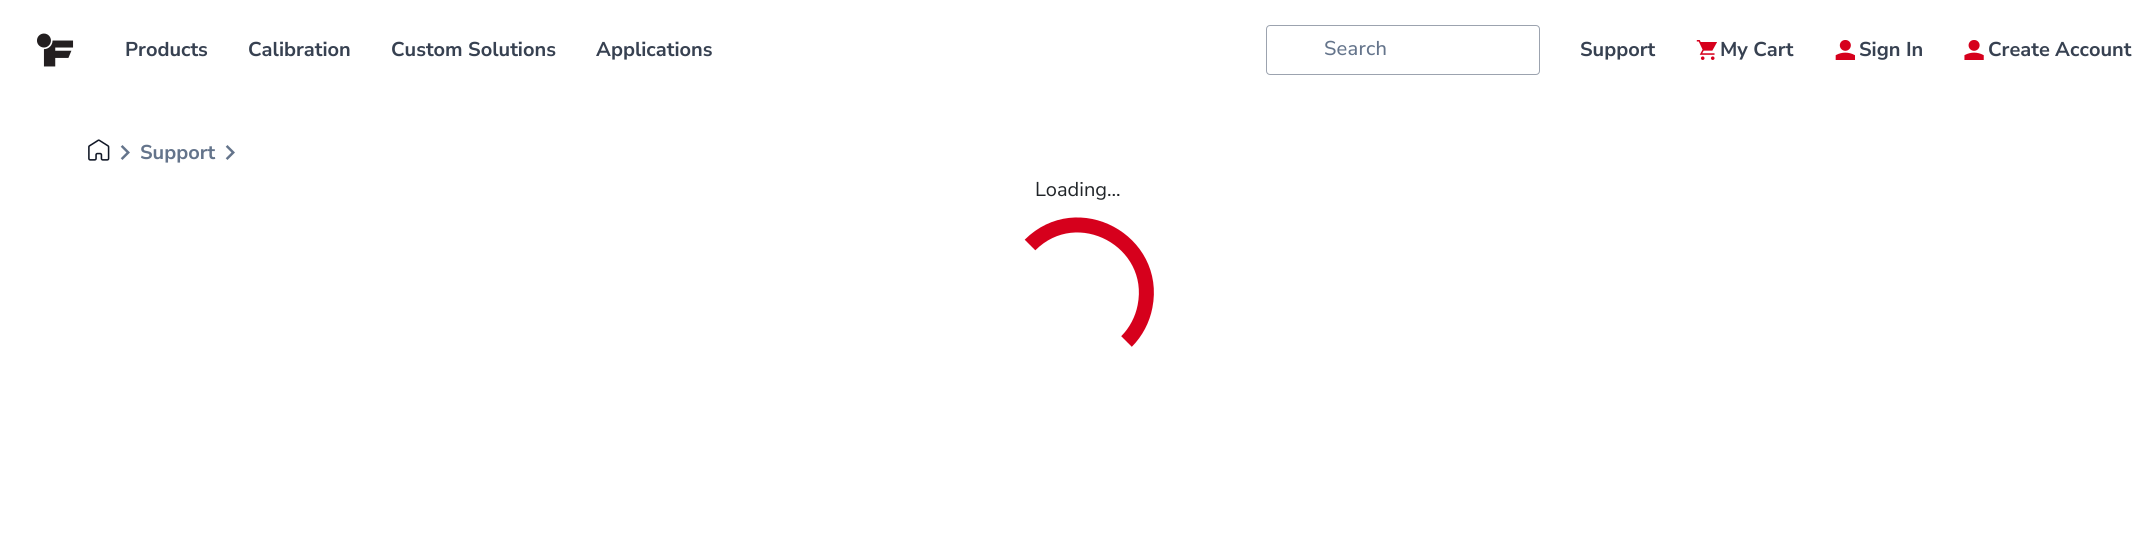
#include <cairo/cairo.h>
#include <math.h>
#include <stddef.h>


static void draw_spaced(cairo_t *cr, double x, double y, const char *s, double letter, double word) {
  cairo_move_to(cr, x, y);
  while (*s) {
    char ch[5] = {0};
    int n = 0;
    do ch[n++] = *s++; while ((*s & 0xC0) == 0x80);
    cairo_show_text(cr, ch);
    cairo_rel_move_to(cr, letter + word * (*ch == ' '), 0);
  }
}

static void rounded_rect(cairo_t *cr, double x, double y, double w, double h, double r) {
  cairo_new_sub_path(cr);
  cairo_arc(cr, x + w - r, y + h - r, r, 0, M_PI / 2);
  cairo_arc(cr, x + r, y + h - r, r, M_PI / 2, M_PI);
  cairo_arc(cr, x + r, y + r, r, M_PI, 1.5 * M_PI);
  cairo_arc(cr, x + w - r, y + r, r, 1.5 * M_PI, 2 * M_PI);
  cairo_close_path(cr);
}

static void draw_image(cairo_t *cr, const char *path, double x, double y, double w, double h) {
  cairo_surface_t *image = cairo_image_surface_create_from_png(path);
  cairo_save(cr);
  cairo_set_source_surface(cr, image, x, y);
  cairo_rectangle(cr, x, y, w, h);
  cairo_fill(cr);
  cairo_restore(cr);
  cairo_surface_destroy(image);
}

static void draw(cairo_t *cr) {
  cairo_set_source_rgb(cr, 1, 1, 1);
  cairo_paint(cr);
  draw_image(cr, "images/1.png", 37, 33, 37, 34);
  rounded_rect(cr, 1266.5, 25.5, 273, 49, 3.5);
  cairo_set_source_rgb(cr, 156 / 255.0, 163 / 255.0, 175 / 255.0);
  cairo_set_line_width(cr, 1);
  cairo_stroke(cr);
  draw_image(cr, "images/2.png", 1696, 40, 21, 20);
  draw_image(cr, "images/3.png", 1835, 40, 20, 20);
  draw_image(cr, "images/4.png", 1964, 40, 20, 20);
  draw_image(cr, "images/5.png", 88, 139, 22, 22);
  draw_image(cr, "images/6.png", 120, 145, 10, 15);
  draw_image(cr, "images/6.png", 225, 145, 10, 15);
  cairo_new_path(cr);
  cairo_move_to(cr, 1030, 245);
  cairo_curve_to(cr, 1077.5, 197.5, 1158, 241, 1145, 306.5);
  cairo_curve_to(cr, 1142.5, 319.5, 1136, 332, 1126.5, 341.5);
  cairo_set_source_rgb(cr, 214 / 255.0, 0, 28 / 255.0);
  cairo_set_line_width(cr, 15);
  cairo_stroke(cr);
  cairo_select_font_face(cr, "Nunito Sans", CAIRO_FONT_SLANT_NORMAL, CAIRO_FONT_WEIGHT_BOLD);
  cairo_set_font_size(cr, 20);
  cairo_set_source_rgb(cr, 55 / 255.0, 65 / 255.0, 81 / 255.0);
  cairo_move_to(cr, 125, 56);
  cairo_show_text(cr, "Products");
  cairo_move_to(cr, 248, 56);
  cairo_show_text(cr, "Calibration");
  cairo_move_to(cr, 391, 56);
  cairo_show_text(cr, "Custom Solutions");
  cairo_move_to(cr, 596, 56);
  cairo_show_text(cr, "Applications");
  cairo_select_font_face(cr, "Nunito Sans Medium", CAIRO_FONT_SLANT_NORMAL, CAIRO_FONT_WEIGHT_NORMAL);
  cairo_set_source_rgb(cr, 100 / 255.0, 116 / 255.0, 139 / 255.0);
  draw_spaced(cr, 1324, 55, "Search", 0.25, 0);
  cairo_select_font_face(cr, "Nunito Sans", CAIRO_FONT_SLANT_NORMAL, CAIRO_FONT_WEIGHT_BOLD);
  cairo_set_source_rgb(cr, 55 / 255.0, 65 / 255.0, 81 / 255.0);
  cairo_move_to(cr, 1580, 56);
  cairo_show_text(cr, "Support");
  cairo_move_to(cr, 1720, 56);
  cairo_show_text(cr, "My Cart");
  cairo_move_to(cr, 1859, 56);
  cairo_show_text(cr, "Sign In");
  cairo_move_to(cr, 1988, 56);
  cairo_show_text(cr, "Create Account");
  cairo_set_source_rgb(cr, 100 / 255.0, 116 / 255.0, 139 / 255.0);
  cairo_move_to(cr, 140, 159);
  cairo_show_text(cr, "Support");
  cairo_select_font_face(cr, "Nunito Sans", CAIRO_FONT_SLANT_NORMAL, CAIRO_FONT_WEIGHT_NORMAL);
  cairo_set_source_rgb(cr, 33 / 255.0, 37 / 255.0, 41 / 255.0);
  cairo_move_to(cr, 1035, 196);
  cairo_show_text(cr, "Loading...");
}

int main(void) {
  cairo_surface_t *surface = cairo_image_surface_create(CAIRO_FORMAT_RGB24, 2156, 543);
  cairo_t *cr = cairo_create(surface);
  cairo_font_options_t *options = cairo_font_options_create();
  cairo_font_options_set_hint_metrics(options, CAIRO_HINT_METRICS_OFF);
  cairo_font_options_set_hint_style(options, CAIRO_HINT_STYLE_NONE);
  cairo_set_font_options(cr, options);
  cairo_set_miter_limit(cr, 4);
  draw(cr);
  cairo_surface_write_to_png(surface, "out.png");
  cairo_font_options_destroy(options);
  cairo_destroy(cr);
  cairo_surface_destroy(surface);
  return 0;
}
